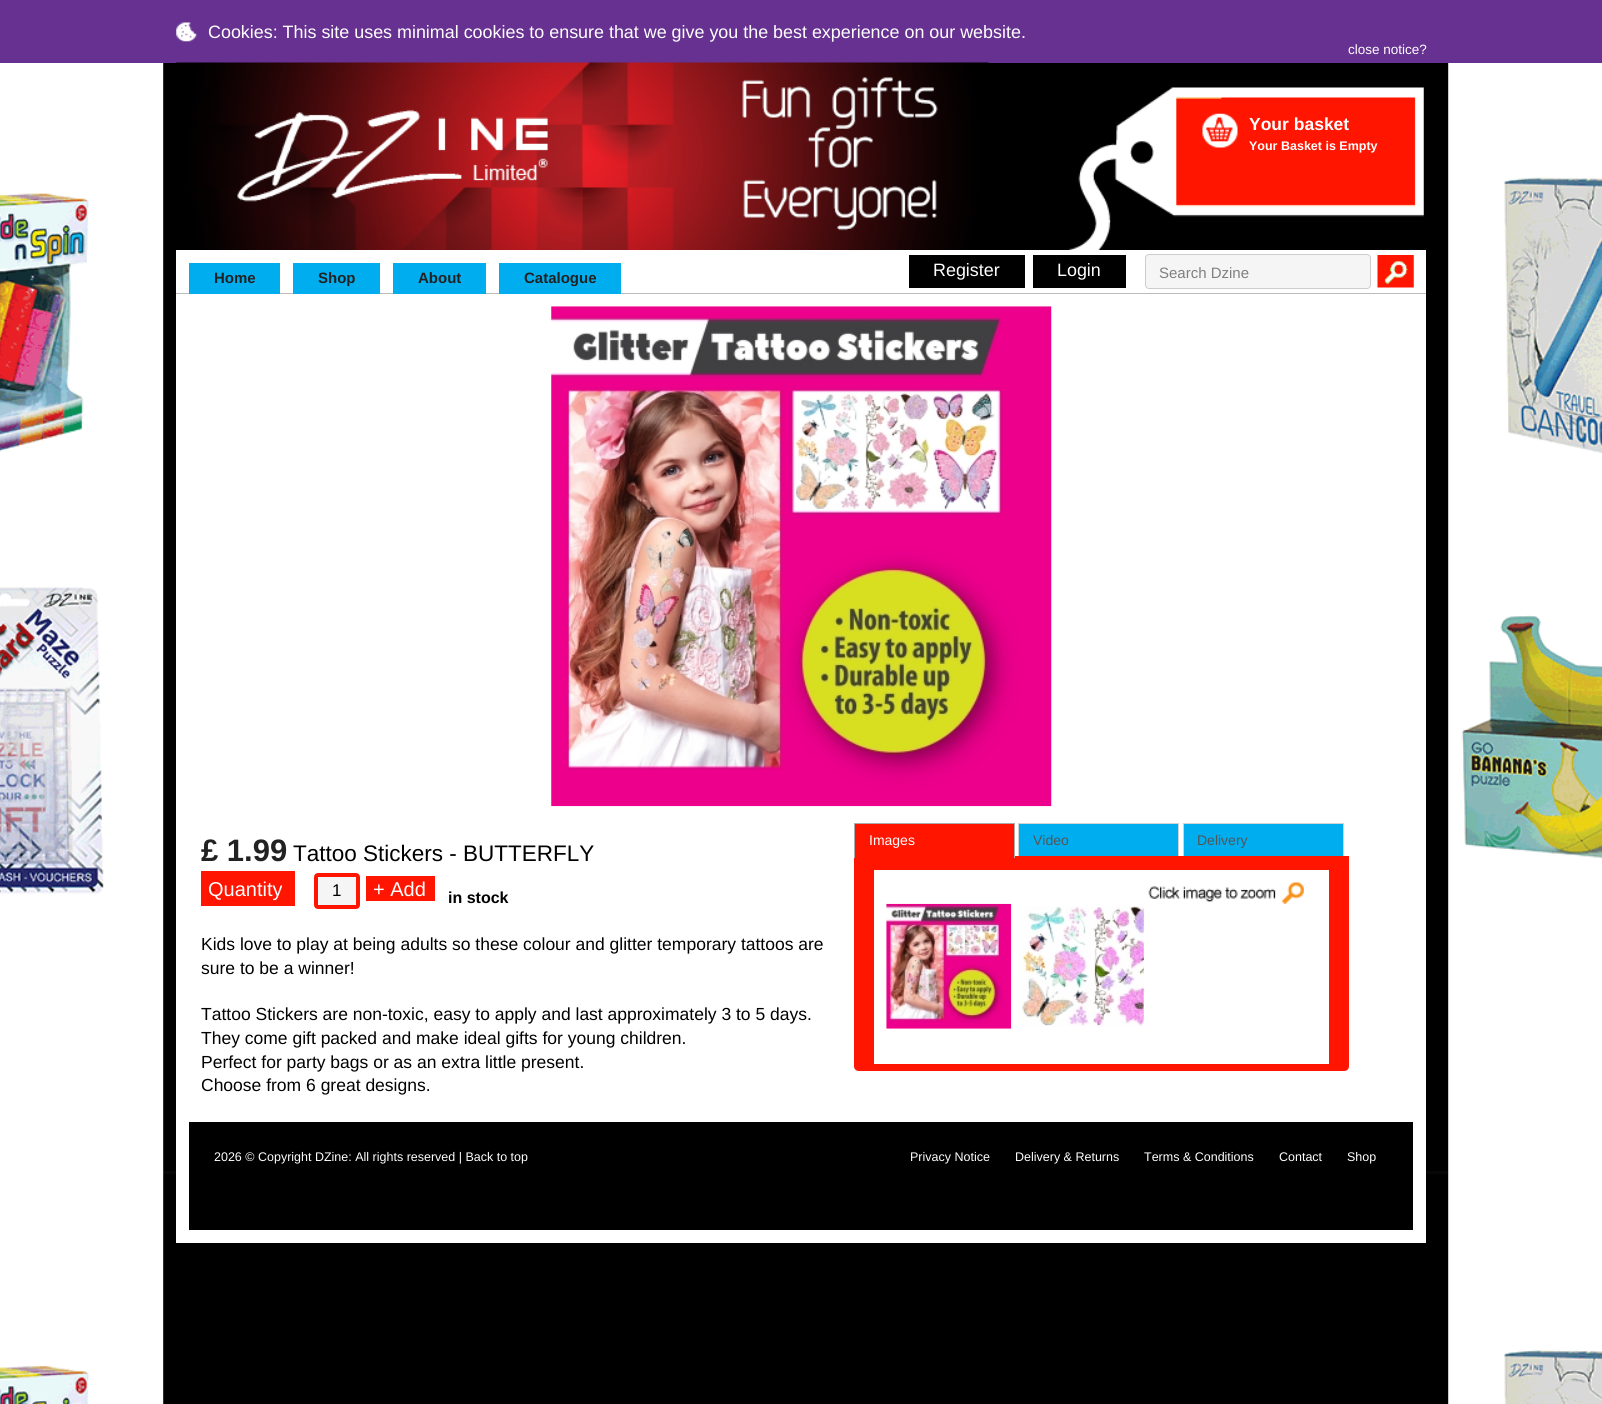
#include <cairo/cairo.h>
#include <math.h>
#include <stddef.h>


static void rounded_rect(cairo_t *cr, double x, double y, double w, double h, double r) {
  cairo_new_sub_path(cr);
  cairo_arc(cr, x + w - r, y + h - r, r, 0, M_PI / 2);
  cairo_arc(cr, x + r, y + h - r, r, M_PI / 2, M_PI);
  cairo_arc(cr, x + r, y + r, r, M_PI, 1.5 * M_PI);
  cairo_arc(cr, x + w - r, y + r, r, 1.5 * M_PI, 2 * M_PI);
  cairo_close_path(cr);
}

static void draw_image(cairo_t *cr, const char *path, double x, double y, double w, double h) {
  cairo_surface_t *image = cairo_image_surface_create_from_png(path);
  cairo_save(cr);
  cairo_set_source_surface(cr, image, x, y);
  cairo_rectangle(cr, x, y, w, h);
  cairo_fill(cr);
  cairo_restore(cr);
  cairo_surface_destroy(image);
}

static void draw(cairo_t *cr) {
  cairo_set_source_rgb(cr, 1, 1, 1);
  cairo_paint(cr);
  draw_image(cr, "images/1.png", 0, 63, 1602, 1341);
  cairo_set_source_rgb(cr, 102 / 255.0, 49 / 255.0, 144 / 255.0);
  cairo_rectangle(cr, 0, 0, 1602, 63);
  cairo_fill(cr);
  draw_image(cr, "images/2.png", 176, 22, 21, 20);
  draw_image(cr, "images/3.png", 176, 62, 813, 188);
  draw_image(cr, "images/4.png", 1068, 87, 356, 163);
  draw_image(cr, "images/5.png", 1202, 113, 36, 35);
  cairo_set_source_rgb(cr, 1, 1, 1);
  cairo_rectangle(cr, 176, 250, 1250, 43);
  cairo_fill(cr);
  cairo_set_source_rgb(cr, 187 / 255.0, 187 / 255.0, 187 / 255.0);
  cairo_rectangle(cr, 176, 293, 1250, 1);
  cairo_fill(cr);
  cairo_set_source_rgb(cr, 0, 173 / 255.0, 239 / 255.0);
  cairo_rectangle(cr, 189, 263, 91, 31);
  cairo_fill(cr);
  cairo_rectangle(cr, 293, 263, 87, 31);
  cairo_fill(cr);
  cairo_rectangle(cr, 393, 263, 93, 31);
  cairo_fill(cr);
  cairo_rectangle(cr, 499, 263, 122, 31);
  cairo_fill(cr);
  cairo_set_source_rgb(cr, 0, 0, 0);
  cairo_rectangle(cr, 909, 255, 116, 33);
  cairo_fill(cr);
  cairo_rectangle(cr, 1033, 255, 93, 33);
  cairo_fill(cr);
  cairo_set_source_rgb(cr, 245 / 255.0, 245 / 255.0, 245 / 255.0);
  rounded_rect(cr, 1145.5, 254.5, 225, 34, 3.5);
  cairo_fill_preserve(cr);
  cairo_set_source_rgb(cr, 204 / 255.0, 204 / 255.0, 204 / 255.0);
  cairo_set_line_width(cr, 1);
  cairo_stroke(cr);
  draw_image(cr, "images/6.png", 1377, 255, 37, 33);
  cairo_set_source_rgb(cr, 1, 1, 1);
  cairo_rectangle(cr, 176, 294, 1250, 815);
  cairo_fill(cr);
  draw_image(cr, "images/7.png", 551, 306, 501, 501);
  cairo_set_source_rgb(cr, 1, 21 / 255.0, 0);
  cairo_rectangle(cr, 201, 871, 94, 35);
  cairo_fill(cr);
  cairo_set_source_rgb(cr, 245 / 255.0, 245 / 255.0, 245 / 255.0);
  rounded_rect(cr, 316, 875, 42, 32, 2);
  cairo_fill_preserve(cr);
  cairo_set_source_rgb(cr, 1, 21 / 255.0, 0);
  cairo_set_line_width(cr, 4);
  cairo_stroke(cr);
  cairo_rectangle(cr, 366, 876, 69, 25);
  cairo_fill(cr);
  cairo_rectangle(cr, 855, 824, 159, 32);
  cairo_fill(cr);
  cairo_set_source_rgb(cr, 170 / 255.0, 170 / 255.0, 170 / 255.0);
  cairo_rectangle(cr, 854, 823, 161, 1);
  cairo_fill(cr);
  cairo_set_source_rgb(cr, 1, 21 / 255.0, 0);
  cairo_new_path(cr);
  cairo_move_to(cr, 854, 856);
  cairo_line_to(cr, 1349, 856);
  cairo_line_to(cr, 1349, 1066);
  cairo_curve_to(cr, 1349, 1069, 1347, 1071, 1344, 1071);
  cairo_line_to(cr, 859, 1071);
  cairo_curve_to(cr, 856, 1071, 854, 1069, 854, 1066);
  cairo_close_path(cr);
  cairo_fill(cr);
  cairo_set_source_rgb(cr, 170 / 255.0, 170 / 255.0, 170 / 255.0);
  cairo_rectangle(cr, 1014, 823, 1, 35);
  cairo_fill(cr);
  cairo_rectangle(cr, 854, 823, 1, 35);
  cairo_fill(cr);
  cairo_set_source_rgb(cr, 0, 173 / 255.0, 239 / 255.0);
  cairo_rectangle(cr, 1019, 824, 159, 32);
  cairo_fill(cr);
  cairo_set_source_rgb(cr, 211 / 255.0, 211 / 255.0, 211 / 255.0);
  cairo_rectangle(cr, 1018, 823, 161, 1);
  cairo_fill(cr);
  cairo_rectangle(cr, 1178, 823, 1, 33);
  cairo_fill(cr);
  cairo_rectangle(cr, 1018, 823, 1, 33);
  cairo_fill(cr);
  cairo_set_source_rgb(cr, 0, 173 / 255.0, 239 / 255.0);
  cairo_rectangle(cr, 1184, 824, 159, 32);
  cairo_fill(cr);
  cairo_set_source_rgb(cr, 211 / 255.0, 211 / 255.0, 211 / 255.0);
  cairo_rectangle(cr, 1183, 823, 161, 1);
  cairo_fill(cr);
  cairo_rectangle(cr, 1343, 823, 1, 33);
  cairo_fill(cr);
  cairo_rectangle(cr, 1183, 823, 1, 33);
  cairo_fill(cr);
  cairo_set_source_rgb(cr, 1, 1, 1);
  cairo_rectangle(cr, 874, 870, 455, 194);
  cairo_fill(cr);
  draw_image(cr, "images/8.png", 1148, 882, 156, 22);
  draw_image(cr, "images/9.png", 886, 903, 126, 126);
  draw_image(cr, "images/10.png", 1022, 906, 122, 121);
  cairo_set_source_rgb(cr, 0, 0, 0);
  cairo_rectangle(cr, 189, 1171, 1224, 3);
  cairo_fill(cr);
  cairo_rectangle(cr, 182.5, 1115.5, 1237, 121);
  cairo_set_source_rgb(cr, 1, 1, 1);
  cairo_set_line_width(cr, 13);
  cairo_stroke(cr);
  cairo_select_font_face(cr, "Liberation Sans", CAIRO_FONT_SLANT_NORMAL, CAIRO_FONT_WEIGHT_NORMAL);
  cairo_set_font_size(cr, 17.9);
  cairo_move_to(cr, 208, 38);
  cairo_show_text(cr, "Cookies: This site uses minimal cookies to ensure that we give you the best experience on our website.");
  cairo_set_font_size(cr, 13.5);
  cairo_move_to(cr, 1348, 54);
  cairo_show_text(cr, "close notice?");
  cairo_select_font_face(cr, "Liberation Sans", CAIRO_FONT_SLANT_NORMAL, CAIRO_FONT_WEIGHT_BOLD);
  cairo_set_font_size(cr, 17.5);
  cairo_move_to(cr, 1249, 130);
  cairo_show_text(cr, "Your basket");
  cairo_set_font_size(cr, 12.5);
  cairo_move_to(cr, 1249, 150);
  cairo_show_text(cr, "Your Basket is Empty");
  cairo_set_font_size(cr, 15);
  cairo_set_source_rgb(cr, 34 / 255.0, 34 / 255.0, 34 / 255.0);
  cairo_move_to(cr, 214, 283);
  cairo_show_text(cr, "Home");
  cairo_move_to(cr, 318, 283);
  cairo_show_text(cr, "Shop");
  cairo_move_to(cr, 418, 283);
  cairo_show_text(cr, "About");
  cairo_move_to(cr, 524, 283);
  cairo_show_text(cr, "Catalogue");
  cairo_select_font_face(cr, "Liberation Sans", CAIRO_FONT_SLANT_NORMAL, CAIRO_FONT_WEIGHT_NORMAL);
  cairo_set_font_size(cr, 17.9);
  cairo_set_source_rgb(cr, 1, 1, 1);
  cairo_move_to(cr, 933, 276);
  cairo_show_text(cr, "Register");
  cairo_move_to(cr, 1057, 276);
  cairo_show_text(cr, "Login");
  cairo_set_font_size(cr, 15);
  cairo_set_source_rgb(cr, 128 / 255.0, 128 / 255.0, 128 / 255.0);
  cairo_move_to(cr, 1159, 278);
  cairo_show_text(cr, "Search Dzine");
  cairo_select_font_face(cr, "Liberation Sans", CAIRO_FONT_SLANT_NORMAL, CAIRO_FONT_WEIGHT_BOLD);
  cairo_set_font_size(cr, 31);
  cairo_set_source_rgb(cr, 34 / 255.0, 34 / 255.0, 34 / 255.0);
  cairo_move_to(cr, 201, 861);
  cairo_show_text(cr, "£ 1.99");
  cairo_select_font_face(cr, "Liberation Sans", CAIRO_FONT_SLANT_NORMAL, CAIRO_FONT_WEIGHT_NORMAL);
  cairo_set_font_size(cr, 22.5);
  cairo_set_source_rgb(cr, 0, 0, 0);
  cairo_move_to(cr, 293, 861);
  cairo_show_text(cr, "Tattoo Stickers - BUTTERFLY");
  cairo_set_font_size(cr, 20);
  cairo_set_source_rgb(cr, 1, 1, 1);
  cairo_move_to(cr, 208, 896);
  cairo_show_text(cr, "Quantity");
  cairo_set_font_size(cr, 17);
  cairo_set_source_rgb(cr, 0, 0, 0);
  cairo_move_to(cr, 332, 896);
  cairo_show_text(cr, "1");
  cairo_set_font_size(cr, 20);
  cairo_set_source_rgb(cr, 1, 1, 1);
  cairo_move_to(cr, 373, 896);
  cairo_show_text(cr, "+ Add");
  cairo_select_font_face(cr, "Liberation Sans", CAIRO_FONT_SLANT_NORMAL, CAIRO_FONT_WEIGHT_BOLD);
  cairo_set_font_size(cr, 16);
  cairo_set_source_rgb(cr, 0, 0, 0);
  cairo_move_to(cr, 448, 903);
  cairo_show_text(cr, "in stock");
  cairo_select_font_face(cr, "Liberation Sans", CAIRO_FONT_SLANT_NORMAL, CAIRO_FONT_WEIGHT_NORMAL);
  cairo_set_font_size(cr, 17.5);
  cairo_move_to(cr, 201, 950);
  cairo_show_text(cr, "Kids love to play at being adults so these colour and glitter temporary tattoos are");
  cairo_move_to(cr, 201, 974);
  cairo_show_text(cr, "sure to be a winner!");
  cairo_move_to(cr, 201, 1020);
  cairo_show_text(cr, "Tattoo Stickers are non-toxic, easy to apply and last approximately 3 to 5 days.");
  cairo_move_to(cr, 201, 1044);
  cairo_show_text(cr, "They come gift packed and make ideal gifts for young children.");
  cairo_move_to(cr, 201, 1068);
  cairo_show_text(cr, "Perfect for party bags or as an extra little present.");
  cairo_move_to(cr, 201, 1091);
  cairo_show_text(cr, "Choose from 6 great designs.");
  cairo_set_font_size(cr, 14);
  cairo_set_source_rgb(cr, 1, 1, 1);
  cairo_move_to(cr, 869, 845);
  cairo_show_text(cr, "Images");
  cairo_set_source_rgb(cr, 85 / 255.0, 85 / 255.0, 85 / 255.0);
  cairo_move_to(cr, 1033, 845);
  cairo_show_text(cr, "Video");
  cairo_move_to(cr, 1197, 845);
  cairo_show_text(cr, "Delivery");
  cairo_set_font_size(cr, 12.5);
  cairo_set_source_rgb(cr, 1, 1, 1);
  cairo_move_to(cr, 214, 1161);
  cairo_show_text(cr, "2026 © Copyright DZine: All rights reserved | Back to top");
  cairo_move_to(cr, 910, 1161);
  cairo_show_text(cr, "Privacy Notice");
  cairo_move_to(cr, 1015, 1161);
  cairo_show_text(cr, "Delivery & Returns");
  cairo_move_to(cr, 1144, 1161);
  cairo_show_text(cr, "Terms & Conditions");
  cairo_move_to(cr, 1279, 1161);
  cairo_show_text(cr, "Contact");
  cairo_move_to(cr, 1347, 1161);
  cairo_show_text(cr, "Shop");
}

int main(void) {
  cairo_surface_t *surface = cairo_image_surface_create(CAIRO_FORMAT_RGB24, 1602, 1404);
  cairo_t *cr = cairo_create(surface);
  cairo_font_options_t *options = cairo_font_options_create();
  cairo_font_options_set_hint_metrics(options, CAIRO_HINT_METRICS_OFF);
  cairo_font_options_set_hint_style(options, CAIRO_HINT_STYLE_NONE);
  cairo_set_font_options(cr, options);
  cairo_set_miter_limit(cr, 4);
  draw(cr);
  cairo_surface_write_to_png(surface, "out.png");
  cairo_font_options_destroy(options);
  cairo_destroy(cr);
  cairo_surface_destroy(surface);
  return 0;
}
